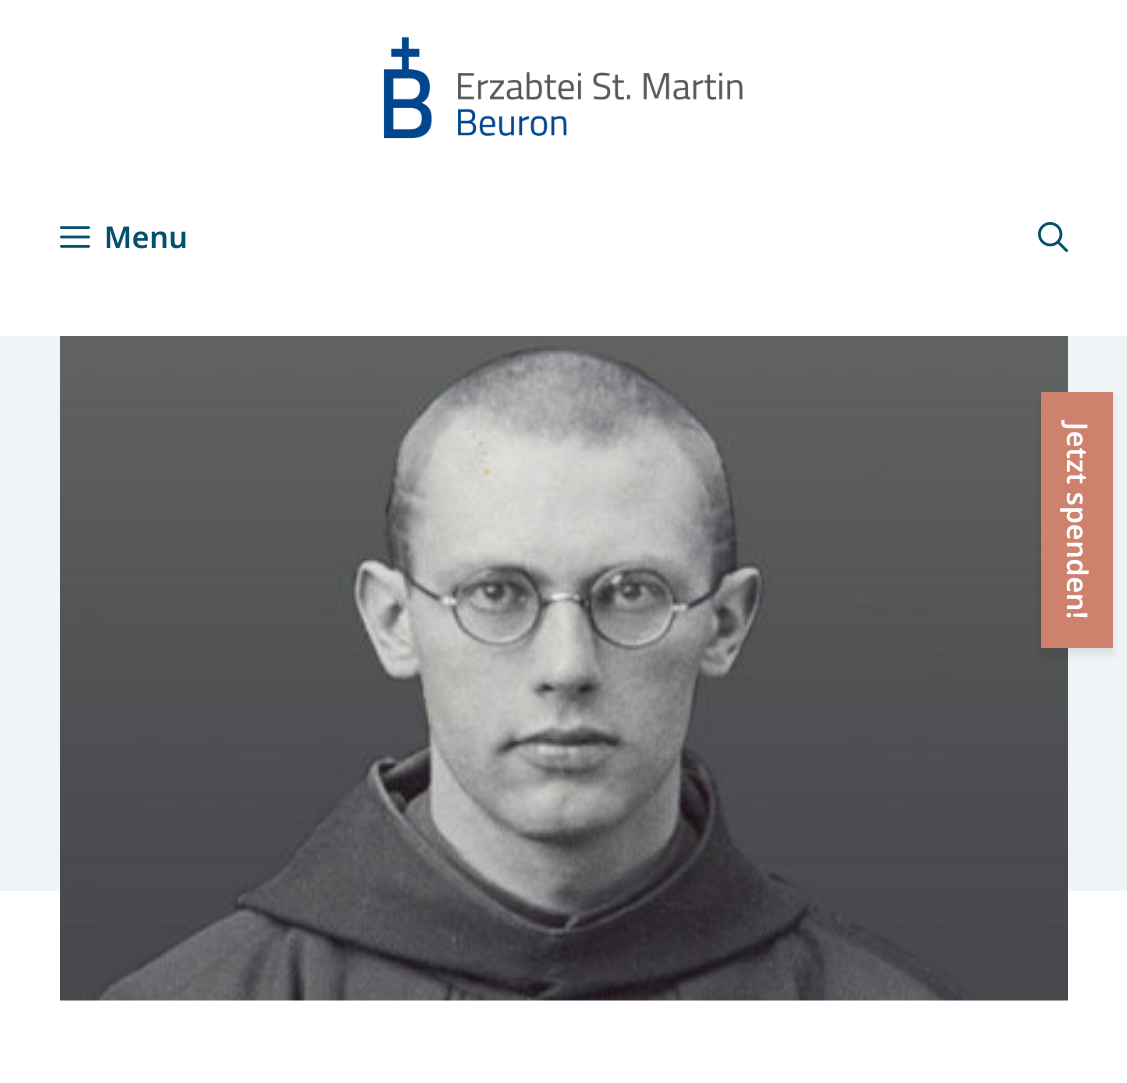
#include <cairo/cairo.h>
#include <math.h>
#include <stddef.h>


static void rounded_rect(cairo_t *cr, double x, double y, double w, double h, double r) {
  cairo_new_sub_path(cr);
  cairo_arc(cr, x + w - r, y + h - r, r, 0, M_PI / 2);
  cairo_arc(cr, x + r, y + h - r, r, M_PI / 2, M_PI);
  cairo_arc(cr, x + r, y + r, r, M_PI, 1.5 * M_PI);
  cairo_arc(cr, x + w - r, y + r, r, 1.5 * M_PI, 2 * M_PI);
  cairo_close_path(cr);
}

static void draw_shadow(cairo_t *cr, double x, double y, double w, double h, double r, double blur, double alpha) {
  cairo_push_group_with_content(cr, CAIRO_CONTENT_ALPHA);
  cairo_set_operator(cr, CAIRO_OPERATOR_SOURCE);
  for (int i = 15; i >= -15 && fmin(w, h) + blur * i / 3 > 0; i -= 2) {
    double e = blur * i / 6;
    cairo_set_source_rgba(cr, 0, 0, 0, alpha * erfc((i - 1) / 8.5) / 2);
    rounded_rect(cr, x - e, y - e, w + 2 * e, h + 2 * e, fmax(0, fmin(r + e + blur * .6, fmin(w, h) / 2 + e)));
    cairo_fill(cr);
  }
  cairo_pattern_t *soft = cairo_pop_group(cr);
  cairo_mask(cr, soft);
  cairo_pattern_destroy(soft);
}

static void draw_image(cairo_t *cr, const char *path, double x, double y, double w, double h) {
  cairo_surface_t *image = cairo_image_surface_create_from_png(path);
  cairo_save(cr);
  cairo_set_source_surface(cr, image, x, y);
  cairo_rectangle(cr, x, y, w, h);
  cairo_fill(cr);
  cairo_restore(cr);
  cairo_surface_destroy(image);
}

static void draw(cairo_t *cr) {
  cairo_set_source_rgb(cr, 1, 1, 1);
  cairo_paint(cr);
  draw_image(cr, "images/1.png", 383, 36, 360, 103);
  draw_image(cr, "images/2.png", 60, 226, 30, 22);
  draw_image(cr, "images/3.png", 1038, 222, 30, 30);
  cairo_set_source_rgb(cr, 239 / 255.0, 245 / 255.0, 246 / 255.0);
  cairo_rectangle(cr, 0, 336, 1127, 555);
  cairo_fill(cr);
  draw_image(cr, "images/4.png", 60, 336, 1008, 665);
  cairo_set_source_rgb(cr, 0, 0, 0);
  draw_shadow(cr, 1041, 398, 72, 256, 0, 4.5, 0.1);
  cairo_set_source_rgb(cr, 206 / 255.0, 129 / 255.0, 109 / 255.0);
  cairo_rectangle(cr, 1041, 392, 72, 256);
  cairo_fill(cr);
  cairo_select_font_face(cr, "Noto Sans SemiBold", CAIRO_FONT_SLANT_NORMAL, CAIRO_FONT_WEIGHT_NORMAL);
  cairo_set_font_size(cr, 30);
  cairo_set_source_rgb(cr, 0, 80 / 255.0, 110 / 255.0);
  cairo_move_to(cr, 104, 248);
  cairo_show_text(cr, "Menu");
  cairo_set_font_size(cr, 28.5);
  cairo_set_source_rgb(cr, 1, 1, 1);
  cairo_save(cr);
  cairo_translate(cr, 1067, 422);
  cairo_rotate(cr, 90 * M_PI / 180);
  cairo_move_to(cr, 0, 0);
  cairo_show_text(cr, "Jetzt spenden!");
  cairo_restore(cr);
}

int main(void) {
  cairo_surface_t *surface = cairo_image_surface_create(CAIRO_FORMAT_RGB24, 1127, 1083);
  cairo_t *cr = cairo_create(surface);
  cairo_font_options_t *options = cairo_font_options_create();
  cairo_font_options_set_hint_metrics(options, CAIRO_HINT_METRICS_OFF);
  cairo_font_options_set_hint_style(options, CAIRO_HINT_STYLE_NONE);
  cairo_set_font_options(cr, options);
  cairo_set_miter_limit(cr, 4);
  draw(cr);
  cairo_surface_write_to_png(surface, "out.png");
  cairo_font_options_destroy(options);
  cairo_destroy(cr);
  cairo_surface_destroy(surface);
  return 0;
}
